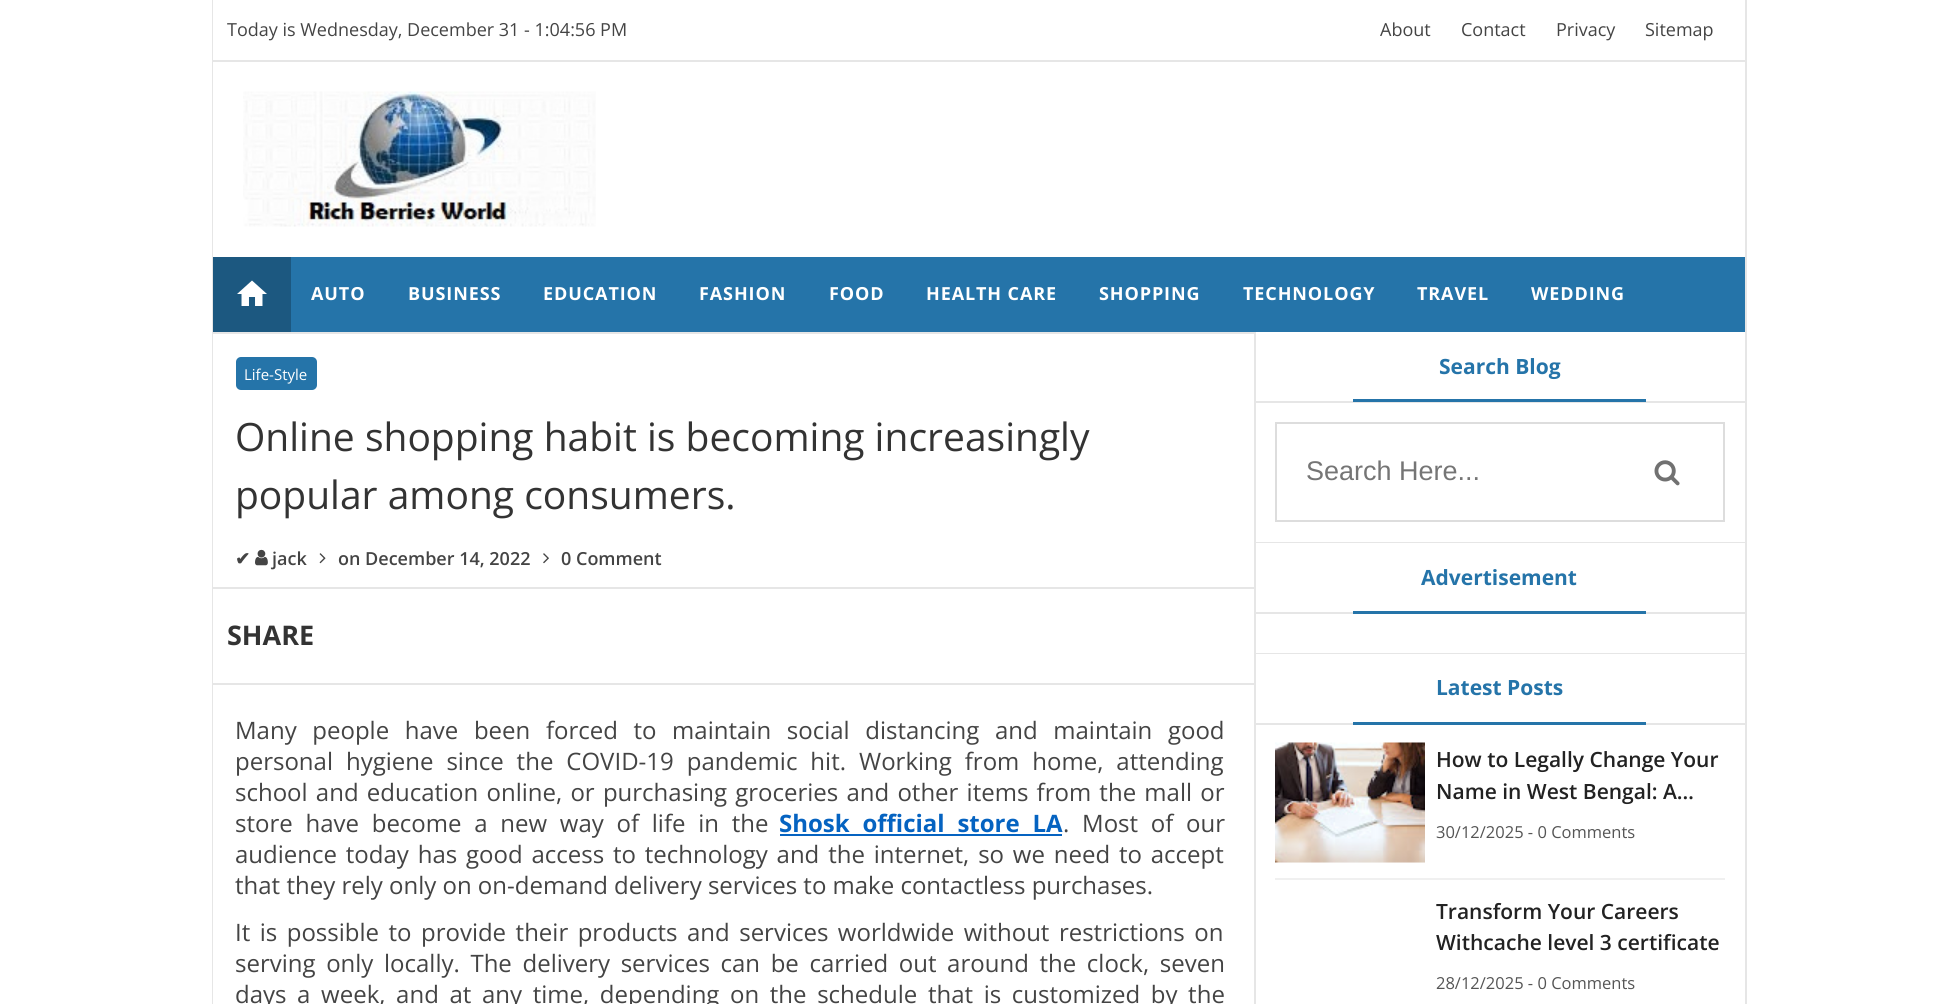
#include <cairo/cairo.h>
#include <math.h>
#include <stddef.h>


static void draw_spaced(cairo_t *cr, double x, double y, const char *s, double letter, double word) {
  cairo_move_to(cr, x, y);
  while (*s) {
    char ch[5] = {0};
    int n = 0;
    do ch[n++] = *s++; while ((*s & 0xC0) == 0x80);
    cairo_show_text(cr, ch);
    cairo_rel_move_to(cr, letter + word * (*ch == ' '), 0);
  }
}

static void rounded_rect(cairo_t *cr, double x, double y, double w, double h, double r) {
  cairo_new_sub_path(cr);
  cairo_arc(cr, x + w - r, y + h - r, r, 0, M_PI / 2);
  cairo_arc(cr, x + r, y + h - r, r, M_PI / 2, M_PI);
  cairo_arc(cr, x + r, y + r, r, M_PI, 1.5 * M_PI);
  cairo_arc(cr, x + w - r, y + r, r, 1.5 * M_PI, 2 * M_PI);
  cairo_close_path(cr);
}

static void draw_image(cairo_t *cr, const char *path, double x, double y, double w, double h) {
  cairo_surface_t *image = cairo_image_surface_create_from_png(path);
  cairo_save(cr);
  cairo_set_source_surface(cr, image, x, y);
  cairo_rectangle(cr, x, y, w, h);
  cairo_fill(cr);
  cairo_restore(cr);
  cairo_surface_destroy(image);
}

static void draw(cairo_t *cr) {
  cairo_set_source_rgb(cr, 1, 1, 1);
  cairo_paint(cr);
  cairo_set_source_rgb(cr, 230 / 255.0, 230 / 255.0, 230 / 255.0);
  cairo_rectangle(cr, 1745, 0, 2, 1004);
  cairo_fill(cr);
  cairo_rectangle(cr, 212, 0, 1, 1004);
  cairo_fill(cr);
  cairo_rectangle(cr, 213, 60, 1532, 2);
  cairo_fill(cr);
  draw_image(cr, "images/1.png", 243, 91, 353, 136);
  cairo_set_source_rgb(cr, 37 / 255.0, 116 / 255.0, 169 / 255.0);
  cairo_rectangle(cr, 291, 257, 1454, 75);
  cairo_fill(cr);
  cairo_set_source_rgb(cr, 28 / 255.0, 88 / 255.0, 128 / 255.0);
  cairo_rectangle(cr, 213, 257, 78, 75);
  cairo_fill(cr);
  draw_image(cr, "images/2.png", 237, 280, 30, 26);
  cairo_set_source_rgb(cr, 230 / 255.0, 230 / 255.0, 230 / 255.0);
  cairo_rectangle(cr, 1254, 332, 2, 672);
  cairo_fill(cr);
  cairo_rectangle(cr, 213, 332, 1041, 2);
  cairo_fill(cr);
  cairo_set_source_rgb(cr, 37 / 255.0, 116 / 255.0, 169 / 255.0);
  rounded_rect(cr, 236, 357, 81, 33, 5);
  cairo_fill(cr);
  draw_image(cr, "images/3.png", 255, 549, 13, 17);
  draw_image(cr, "images/4.png", 319, 553, 7, 11);
  draw_image(cr, "images/5.png", 543, 553, 6, 11);
  cairo_set_source_rgb(cr, 230 / 255.0, 230 / 255.0, 230 / 255.0);
  cairo_rectangle(cr, 213, 587, 1041, 2);
  cairo_fill(cr);
  cairo_rectangle(cr, 213, 683, 1041, 2);
  cairo_fill(cr);
  cairo_set_source_rgb(cr, 5 / 255.0, 99 / 255.0, 193 / 255.0);
  cairo_rectangle(cr, 780, 834, 282, 2);
  cairo_fill(cr);
  cairo_set_source_rgb(cr, 230 / 255.0, 230 / 255.0, 230 / 255.0);
  cairo_rectangle(cr, 1256, 542, 489, 1);
  cairo_fill(cr);
  cairo_rectangle(cr, 1256, 401, 489, 2);
  cairo_fill(cr);
  cairo_set_source_rgb(cr, 37 / 255.0, 116 / 255.0, 169 / 255.0);
  cairo_rectangle(cr, 1353, 399, 293, 3);
  cairo_fill(cr);
  cairo_rectangle(cr, 1276, 423, 448, 98);
  cairo_set_source_rgb(cr, 221 / 255.0, 221 / 255.0, 221 / 255.0);
  cairo_stroke(cr);
  draw_image(cr, "images/6.png", 1654, 460, 26, 26);
  cairo_set_source_rgb(cr, 230 / 255.0, 230 / 255.0, 230 / 255.0);
  cairo_rectangle(cr, 1256, 653, 489, 1);
  cairo_fill(cr);
  cairo_rectangle(cr, 1256, 612, 489, 2);
  cairo_fill(cr);
  cairo_set_source_rgb(cr, 37 / 255.0, 116 / 255.0, 169 / 255.0);
  cairo_rectangle(cr, 1353, 611, 293, 3);
  cairo_fill(cr);
  cairo_set_source_rgb(cr, 230 / 255.0, 230 / 255.0, 230 / 255.0);
  cairo_rectangle(cr, 1256, 723, 489, 2);
  cairo_fill(cr);
  cairo_set_source_rgb(cr, 37 / 255.0, 116 / 255.0, 169 / 255.0);
  cairo_rectangle(cr, 1353, 722, 293, 3);
  cairo_fill(cr);
  cairo_set_source_rgb(cr, 240 / 255.0, 240 / 255.0, 240 / 255.0);
  cairo_rectangle(cr, 1275, 878, 450, 2);
  cairo_fill(cr);
  cairo_set_source_rgb(cr, 250 / 255.0, 250 / 255.0, 250 / 255.0);
  cairo_rectangle(cr, 1275, 862, 150, 1);
  cairo_fill(cr);
  draw_image(cr, "images/7.png", 1275, 742, 150, 121);
  cairo_select_font_face(cr, "Open Sans", CAIRO_FONT_SLANT_NORMAL, CAIRO_FONT_WEIGHT_NORMAL);
  cairo_set_font_size(cr, 18);
  cairo_set_source_rgb(cr, 68 / 255.0, 68 / 255.0, 68 / 255.0);
  cairo_move_to(cr, 227, 36);
  cairo_show_text(cr, "Today is Wednesday, December 31 - 1:04:56 PM");
  cairo_move_to(cr, 1380, 36);
  cairo_show_text(cr, "About");
  cairo_move_to(cr, 1461, 36);
  cairo_show_text(cr, "Contact");
  cairo_move_to(cr, 1556, 36);
  cairo_show_text(cr, "Privacy");
  cairo_move_to(cr, 1645, 36);
  cairo_show_text(cr, "Sitemap");
  cairo_select_font_face(cr, "Open Sans", CAIRO_FONT_SLANT_NORMAL, CAIRO_FONT_WEIGHT_BOLD);
  cairo_set_source_rgb(cr, 1, 1, 1);
  draw_spaced(cr, 311, 300, "AUTO", 0.9, 0);
  draw_spaced(cr, 408, 300, "BUSINESS", 0.9, 0);
  draw_spaced(cr, 543, 300, "EDUCATION", 0.9, 0);
  draw_spaced(cr, 699, 300, "FASHION", 0.9, 0);
  draw_spaced(cr, 829, 300, "FOOD", 0.9, 0);
  draw_spaced(cr, 926, 300, "HEALTH CARE", 0.9, 0);
  draw_spaced(cr, 1099, 300, "SHOPPING", 0.9, 0);
  draw_spaced(cr, 1243, 300, "TECHNOLOGY", 0.9, 0);
  draw_spaced(cr, 1417, 300, "TRAVEL", 0.9, 0);
  draw_spaced(cr, 1531, 300, "WEDDING", 0.9, 0);
  cairo_select_font_face(cr, "Open Sans", CAIRO_FONT_SLANT_NORMAL, CAIRO_FONT_WEIGHT_NORMAL);
  cairo_set_font_size(cr, 15);
  cairo_move_to(cr, 244, 380);
  cairo_show_text(cr, "Life-Style");
  cairo_set_font_size(cr, 39);
  cairo_set_source_rgb(cr, 51 / 255.0, 51 / 255.0, 51 / 255.0);
  cairo_move_to(cr, 235, 451);
  cairo_show_text(cr, "Online shopping habit is becoming increasingly");
  cairo_move_to(cr, 235, 509);
  cairo_show_text(cr, "popular among consumers.");
  cairo_select_font_face(cr, "DejaVu Sans", CAIRO_FONT_SLANT_NORMAL, CAIRO_FONT_WEIGHT_BOLD);
  cairo_set_font_size(cr, 18);
  cairo_set_source_rgb(cr, 68 / 255.0, 68 / 255.0, 68 / 255.0);
  cairo_move_to(cr, 235, 565);
  cairo_show_text(cr, "✔");
  cairo_select_font_face(cr, "Open Sans SemiBold", CAIRO_FONT_SLANT_NORMAL, CAIRO_FONT_WEIGHT_NORMAL);
  cairo_move_to(cr, 272, 565);
  cairo_show_text(cr, "jack");
  cairo_move_to(cr, 338, 565);
  cairo_show_text(cr, "on December 14, 2022");
  cairo_move_to(cr, 561, 565);
  cairo_show_text(cr, "0 Comment");
  cairo_select_font_face(cr, "Open Sans", CAIRO_FONT_SLANT_NORMAL, CAIRO_FONT_WEIGHT_BOLD);
  cairo_set_font_size(cr, 27);
  cairo_set_source_rgb(cr, 51 / 255.0, 51 / 255.0, 51 / 255.0);
  cairo_move_to(cr, 227, 645);
  cairo_show_text(cr, "SHARE");
  cairo_select_font_face(cr, "Open Sans", CAIRO_FONT_SLANT_NORMAL, CAIRO_FONT_WEIGHT_NORMAL);
  cairo_set_font_size(cr, 24);
  cairo_set_source_rgb(cr, 68 / 255.0, 68 / 255.0, 68 / 255.0);
  draw_spaced(cr, 235, 739, "Many people have been forced to maintain social distancing and maintain good", 0, 9.4);
  draw_spaced(cr, 235, 770, "personal hygiene since the COVID-19 pandemic hit. Working from home, attending", 0, 6.75);
  draw_spaced(cr, 235, 801, "school and education online, or purchasing groceries and other items from the mall or", 0, 2);
  draw_spaced(cr, 235, 832, "store have become a new way of life in the", 0, 6.5);
  cairo_select_font_face(cr, "Open Sans", CAIRO_FONT_SLANT_NORMAL, CAIRO_FONT_WEIGHT_BOLD);
  cairo_set_source_rgb(cr, 5 / 255.0, 99 / 255.0, 193 / 255.0);
  draw_spaced(cr, 779, 832, "Shosk official store LA", 0, 6.5);
  cairo_select_font_face(cr, "Open Sans", CAIRO_FONT_SLANT_NORMAL, CAIRO_FONT_WEIGHT_NORMAL);
  cairo_set_source_rgb(cr, 68 / 255.0, 68 / 255.0, 68 / 255.0);
  draw_spaced(cr, 1063, 832, ". Most of our", 0, 6.5);
  draw_spaced(cr, 235, 863, "audience today has good access to technology and the internet, so we need to accept", 0, 2.6);
  cairo_move_to(cr, 235, 894);
  cairo_show_text(cr, "that they rely only on on-demand delivery services to make contactless purchases.");
  draw_spaced(cr, 235, 941, "It is possible to provide their products and services worldwide without restrictions on", 0, 3.25);
  draw_spaced(cr, 235, 972, "serving only locally. The delivery services can be carried out around the clock, seven", 0, 4.4);
  draw_spaced(cr, 235, 1003, "days a week, and at any time, depending on the schedule that is customized by the", 0, 4.4);
  cairo_select_font_face(cr, "Open Sans", CAIRO_FONT_SLANT_NORMAL, CAIRO_FONT_WEIGHT_BOLD);
  cairo_set_font_size(cr, 21);
  cairo_set_source_rgb(cr, 37 / 255.0, 116 / 255.0, 169 / 255.0);
  cairo_move_to(cr, 1439, 374);
  cairo_show_text(cr, "Search Blog");
  cairo_select_font_face(cr, "Liberation Sans", CAIRO_FONT_SLANT_NORMAL, CAIRO_FONT_WEIGHT_NORMAL);
  cairo_set_font_size(cr, 27);
  cairo_set_source_rgb(cr, 117 / 255.0, 117 / 255.0, 117 / 255.0);
  cairo_move_to(cr, 1306, 480);
  cairo_show_text(cr, "Search Here...");
  cairo_select_font_face(cr, "Open Sans", CAIRO_FONT_SLANT_NORMAL, CAIRO_FONT_WEIGHT_BOLD);
  cairo_set_font_size(cr, 21);
  cairo_set_source_rgb(cr, 37 / 255.0, 116 / 255.0, 169 / 255.0);
  cairo_move_to(cr, 1421, 585);
  cairo_show_text(cr, "Advertisement");
  cairo_move_to(cr, 1436, 695);
  cairo_show_text(cr, "Latest Posts");
  cairo_select_font_face(cr, "Open Sans SemiBold", CAIRO_FONT_SLANT_NORMAL, CAIRO_FONT_WEIGHT_NORMAL);
  cairo_set_source_rgb(cr, 34 / 255.0, 34 / 255.0, 34 / 255.0);
  cairo_move_to(cr, 1436, 767);
  cairo_show_text(cr, "How to Legally Change Your");
  cairo_move_to(cr, 1436, 799);
  cairo_show_text(cr, "Name in West Bengal: A…");
  cairo_select_font_face(cr, "Open Sans", CAIRO_FONT_SLANT_NORMAL, CAIRO_FONT_WEIGHT_NORMAL);
  cairo_set_font_size(cr, 16.5);
  cairo_set_source_rgb(cr, 85 / 255.0, 85 / 255.0, 85 / 255.0);
  cairo_move_to(cr, 1436, 838);
  cairo_show_text(cr, "30/12/2025 - 0 Comments");
  cairo_select_font_face(cr, "Open Sans SemiBold", CAIRO_FONT_SLANT_NORMAL, CAIRO_FONT_WEIGHT_NORMAL);
  cairo_set_font_size(cr, 21);
  cairo_set_source_rgb(cr, 34 / 255.0, 34 / 255.0, 34 / 255.0);
  cairo_move_to(cr, 1436, 919);
  cairo_show_text(cr, "Transform Your Careers");
  cairo_move_to(cr, 1436, 950);
  cairo_show_text(cr, "Withcache level 3 certificate");
  cairo_select_font_face(cr, "Open Sans", CAIRO_FONT_SLANT_NORMAL, CAIRO_FONT_WEIGHT_NORMAL);
  cairo_set_font_size(cr, 16.5);
  cairo_set_source_rgb(cr, 85 / 255.0, 85 / 255.0, 85 / 255.0);
  cairo_move_to(cr, 1436, 989);
  cairo_show_text(cr, "28/12/2025 - 0 Comments");
}

int main(void) {
  cairo_surface_t *surface = cairo_image_surface_create(CAIRO_FORMAT_RGB24, 1955, 1004);
  cairo_t *cr = cairo_create(surface);
  cairo_font_options_t *options = cairo_font_options_create();
  cairo_font_options_set_hint_metrics(options, CAIRO_HINT_METRICS_OFF);
  cairo_font_options_set_hint_style(options, CAIRO_HINT_STYLE_NONE);
  cairo_set_font_options(cr, options);
  cairo_set_miter_limit(cr, 4);
  draw(cr);
  cairo_surface_write_to_png(surface, "out.png");
  cairo_font_options_destroy(options);
  cairo_destroy(cr);
  cairo_surface_destroy(surface);
  return 0;
}
